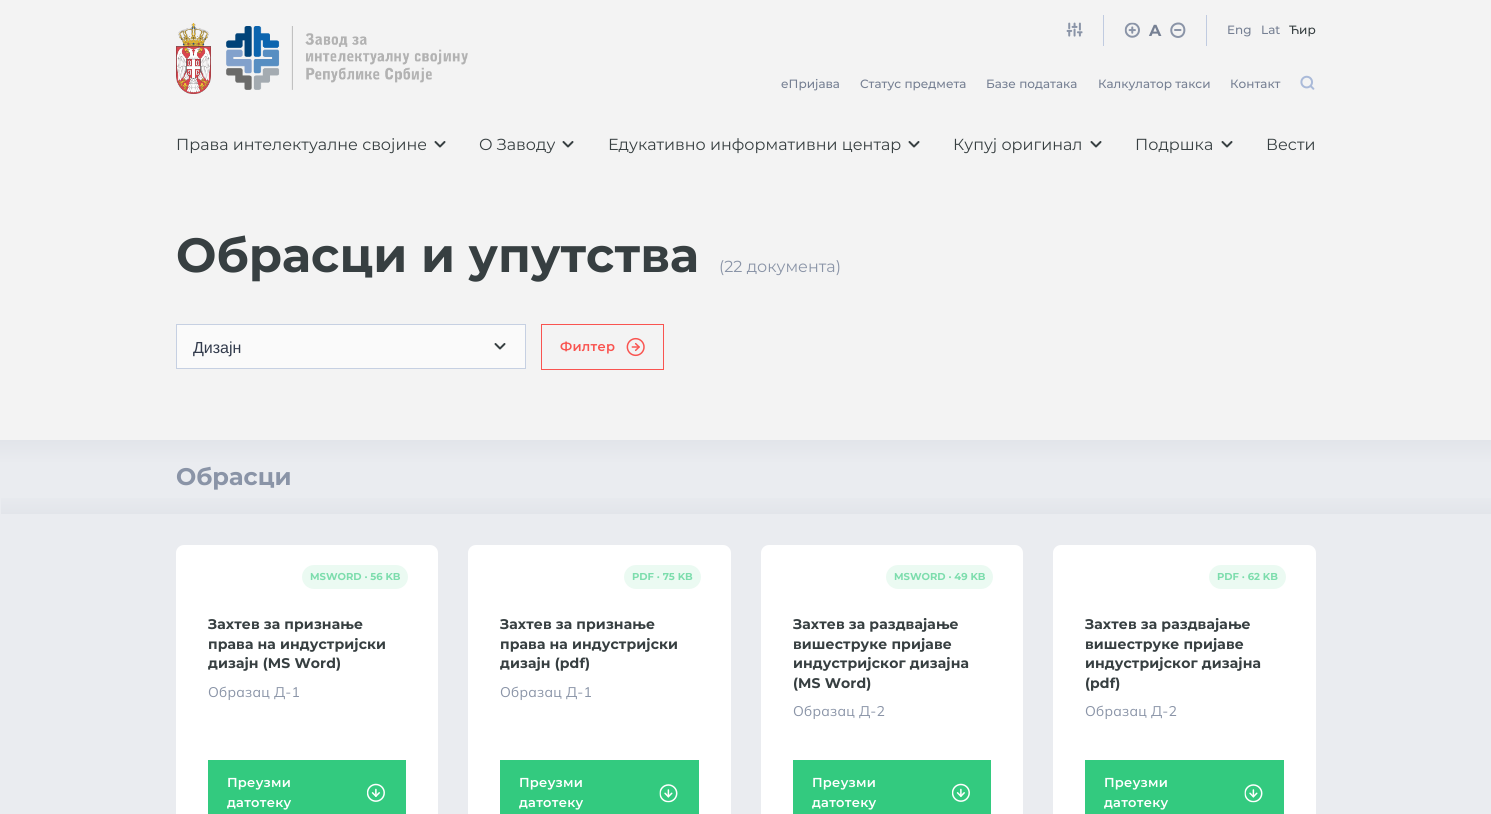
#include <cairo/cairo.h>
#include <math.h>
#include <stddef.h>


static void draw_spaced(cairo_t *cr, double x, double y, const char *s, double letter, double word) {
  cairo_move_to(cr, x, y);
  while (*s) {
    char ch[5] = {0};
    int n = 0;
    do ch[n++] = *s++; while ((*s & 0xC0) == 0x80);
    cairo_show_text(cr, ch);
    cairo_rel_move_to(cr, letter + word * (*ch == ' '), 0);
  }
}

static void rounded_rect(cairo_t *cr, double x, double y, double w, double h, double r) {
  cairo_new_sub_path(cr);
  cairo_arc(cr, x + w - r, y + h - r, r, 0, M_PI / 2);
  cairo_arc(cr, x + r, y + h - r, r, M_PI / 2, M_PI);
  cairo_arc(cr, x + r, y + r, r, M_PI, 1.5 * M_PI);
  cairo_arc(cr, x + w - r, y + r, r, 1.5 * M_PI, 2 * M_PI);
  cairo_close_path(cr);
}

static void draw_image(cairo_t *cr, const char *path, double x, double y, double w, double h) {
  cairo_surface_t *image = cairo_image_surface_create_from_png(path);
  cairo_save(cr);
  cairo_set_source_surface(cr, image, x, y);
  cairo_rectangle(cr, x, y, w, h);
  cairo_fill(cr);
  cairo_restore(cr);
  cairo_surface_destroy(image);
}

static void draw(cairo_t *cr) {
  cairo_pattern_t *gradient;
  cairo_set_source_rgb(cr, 243 / 255.0, 243 / 255.0, 243 / 255.0);
  cairo_paint(cr);
  draw_image(cr, "images/1.png", 176, 23, 35, 71);
  draw_image(cr, "images/2.png", 226, 26, 242, 64);
  cairo_set_source_rgb(cr, 192 / 255.0, 203 / 255.0, 224 / 255.0);
  cairo_rectangle(cr, 1103, 15, 1, 31);
  cairo_fill(cr);
  draw_image(cr, "images/3.png", 1066, 22, 17, 15);
  cairo_rectangle(cr, 1206, 15, 1, 31);
  cairo_fill(cr);
  draw_image(cr, "images/4.png", 1124, 22, 16, 16);
  cairo_save(cr);
  cairo_new_path(cr);
  cairo_move_to(cr, 1169.5, 22.5);
  cairo_line_to(cr, 1185.5, 22.5);
  cairo_line_to(cr, 1185.5, 38.5);
  cairo_line_to(cr, 1169.5, 38.5);
  cairo_close_path(cr);
  cairo_clip(cr);
  cairo_new_path(cr);
  cairo_move_to(cr, 1178, 37);
  cairo_curve_to(cr, 1186.5, 37, 1186.5, 23, 1178, 23.5);
  cairo_curve_to(cr, 1169, 24, 1169, 36.5, 1178, 37);
  cairo_close_path(cr);
  cairo_move_to(cr, 1175, 30);
  cairo_line_to(cr, 1180.5, 30);
  cairo_set_source_rgb(cr, 138 / 255.0, 148 / 255.0, 167 / 255.0);
  cairo_set_line_cap(cr, CAIRO_LINE_CAP_ROUND);
  cairo_set_line_join(cr, CAIRO_LINE_JOIN_ROUND);
  cairo_stroke(cr);
  cairo_restore(cr);
  draw_image(cr, "images/5.png", 1300, 75, 15, 15);
  cairo_new_path(cr);
  cairo_move_to(cr, 435.5, 142);
  cairo_line_to(cr, 440, 146.5);
  cairo_line_to(cr, 444.5, 142);
  cairo_set_source_rgb(cr, 55 / 255.0, 63 / 255.0, 65 / 255.0);
  cairo_set_line_cap(cr, CAIRO_LINE_CAP_ROUND);
  cairo_set_line_join(cr, CAIRO_LINE_JOIN_ROUND);
  cairo_stroke(cr);
  cairo_new_path(cr);
  cairo_move_to(cr, 563.5, 142);
  cairo_line_to(cr, 568, 146.5);
  cairo_line_to(cr, 572.5, 142);
  cairo_stroke(cr);
  cairo_new_path(cr);
  cairo_move_to(cr, 909.5, 142);
  cairo_line_to(cr, 914, 146.5);
  cairo_line_to(cr, 918.5, 142);
  cairo_stroke(cr);
  cairo_new_path(cr);
  cairo_move_to(cr, 1091.5, 142);
  cairo_line_to(cr, 1096, 146.5);
  cairo_line_to(cr, 1100.5, 142);
  cairo_stroke(cr);
  cairo_new_path(cr);
  cairo_move_to(cr, 1222.5, 142);
  cairo_line_to(cr, 1227, 146.5);
  cairo_line_to(cr, 1231.5, 142);
  cairo_stroke(cr);
  cairo_set_source_rgb(cr, 250 / 255.0, 250 / 255.0, 250 / 255.0);
  cairo_rectangle(cr, 176.5, 324.5, 349, 44);
  cairo_fill_preserve(cr);
  cairo_set_source_rgb(cr, 198 / 255.0, 208 / 255.0, 226 / 255.0);
  cairo_set_line_width(cr, 1);
  cairo_set_line_cap(cr, CAIRO_LINE_CAP_BUTT);
  cairo_set_line_join(cr, CAIRO_LINE_JOIN_MITER);
  cairo_stroke(cr);
  cairo_new_path(cr);
  cairo_move_to(cr, 495.5, 344);
  cairo_line_to(cr, 500, 348.5);
  cairo_line_to(cr, 504.5, 344);
  cairo_set_source_rgb(cr, 55 / 255.0, 63 / 255.0, 65 / 255.0);
  cairo_set_line_width(cr, 2);
  cairo_set_line_cap(cr, CAIRO_LINE_CAP_ROUND);
  cairo_set_line_join(cr, CAIRO_LINE_JOIN_ROUND);
  cairo_stroke(cr);
  draw_image(cr, "images/6.png", 626, 337, 19, 20);
  cairo_rectangle(cr, 541.5, 324.5, 122, 45);
  cairo_set_source_rgb(cr, 249 / 255.0, 84 / 255.0, 80 / 255.0);
  cairo_set_line_width(cr, 1);
  cairo_set_line_cap(cr, CAIRO_LINE_CAP_BUTT);
  cairo_set_line_join(cr, CAIRO_LINE_JOIN_MITER);
  cairo_stroke(cr);
  cairo_set_source_rgb(cr, 234 / 255.0, 236 / 255.0, 240 / 255.0);
  cairo_rectangle(cr, 0, 464, 1491, 350);
  cairo_fill(cr);
  gradient = cairo_pattern_create_linear(746, 464, 746, 440);
  cairo_pattern_add_color_stop_rgba(gradient, 0, 234 / 255.0, 236 / 255.0, 240 / 255.0, 1);
  cairo_pattern_add_color_stop_rgba(gradient, 1, 226 / 255.0, 229 / 255.0, 234 / 255.0, 1);
  cairo_set_source(cr, gradient);
  cairo_pattern_destroy(gradient);
  cairo_rectangle(cr, 0, 440, 1491, 24);
  cairo_fill(cr);
  gradient = cairo_pattern_create_linear(746, 490, 746, 514);
  cairo_pattern_add_color_stop_rgba(gradient, 0, 234 / 255.0, 236 / 255.0, 240 / 255.0, 1);
  cairo_pattern_add_color_stop_rgba(gradient, 1, 226 / 255.0, 229 / 255.0, 234 / 255.0, 1);
  cairo_set_source(cr, gradient);
  cairo_pattern_destroy(gradient);
  cairo_rectangle(cr, 1, 498, 1490, 16);
  cairo_fill(cr);
  cairo_set_source_rgb(cr, 1, 1, 1);
  rounded_rect(cr, 176, 545, 262, 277, 8);
  cairo_fill(cr);
  cairo_set_source_rgb(cr, 235 / 255.0, 250 / 255.0, 242 / 255.0);
  rounded_rect(cr, 302, 565, 106, 24, 12);
  cairo_fill(cr);
  cairo_set_source_rgb(cr, 51 / 255.0, 202 / 255.0, 127 / 255.0);
  cairo_rectangle(cr, 208, 760, 198, 54);
  cairo_fill(cr);
  draw_image(cr, "images/7.png", 367, 783, 18, 19);
  cairo_set_source_rgb(cr, 1, 1, 1);
  rounded_rect(cr, 468, 545, 263, 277, 8);
  cairo_fill(cr);
  cairo_set_source_rgb(cr, 235 / 255.0, 250 / 255.0, 242 / 255.0);
  rounded_rect(cr, 624, 565, 77, 24, 12);
  cairo_fill(cr);
  cairo_set_source_rgb(cr, 51 / 255.0, 202 / 255.0, 127 / 255.0);
  cairo_rectangle(cr, 500, 760, 199, 54);
  cairo_fill(cr);
  draw_image(cr, "images/8.png", 659, 784, 19, 19);
  cairo_set_source_rgb(cr, 1, 1, 1);
  rounded_rect(cr, 761, 545, 262, 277, 8);
  cairo_fill(cr);
  cairo_set_source_rgb(cr, 235 / 255.0, 250 / 255.0, 242 / 255.0);
  rounded_rect(cr, 886, 565, 107, 24, 12);
  cairo_fill(cr);
  cairo_set_source_rgb(cr, 51 / 255.0, 202 / 255.0, 127 / 255.0);
  cairo_rectangle(cr, 793, 760, 198, 54);
  cairo_fill(cr);
  draw_image(cr, "images/7.png", 952, 783, 18, 19);
  cairo_set_source_rgb(cr, 1, 1, 1);
  rounded_rect(cr, 1053, 545, 263, 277, 8);
  cairo_fill(cr);
  cairo_set_source_rgb(cr, 235 / 255.0, 250 / 255.0, 242 / 255.0);
  rounded_rect(cr, 1209, 565, 77, 24, 12);
  cairo_fill(cr);
  cairo_set_source_rgb(cr, 51 / 255.0, 202 / 255.0, 127 / 255.0);
  cairo_rectangle(cr, 1085, 760, 199, 54);
  cairo_fill(cr);
  draw_image(cr, "images/8.png", 1244, 784, 19, 19);
  cairo_select_font_face(cr, "Montserrat", CAIRO_FONT_SLANT_NORMAL, CAIRO_FONT_WEIGHT_BOLD);
  cairo_set_font_size(cr, 16);
  cairo_set_source_rgb(cr, 118 / 255.0, 128 / 255.0, 147 / 255.0);
  cairo_move_to(cr, 1149, 36);
  cairo_show_text(cr, "A");
  cairo_select_font_face(cr, "Montserrat Medium", CAIRO_FONT_SLANT_NORMAL, CAIRO_FONT_WEIGHT_NORMAL);
  cairo_set_font_size(cr, 12);
  cairo_move_to(cr, 1227, 34);
  cairo_show_text(cr, "Eng");
  cairo_move_to(cr, 1261, 34);
  cairo_show_text(cr, "Lat");
  cairo_set_source_rgb(cr, 55 / 255.0, 63 / 255.0, 65 / 255.0);
  cairo_move_to(cr, 1289, 34);
  cairo_show_text(cr, "Ћир");
  cairo_set_source_rgb(cr, 118 / 255.0, 128 / 255.0, 147 / 255.0);
  cairo_move_to(cr, 781, 88);
  cairo_show_text(cr, "еПријава");
  cairo_move_to(cr, 860, 88);
  cairo_show_text(cr, "Статус предмета");
  cairo_move_to(cr, 986, 88);
  cairo_show_text(cr, "Базе података");
  cairo_move_to(cr, 1098, 88);
  cairo_show_text(cr, "Калкулатор такси");
  cairo_move_to(cr, 1230, 88);
  cairo_show_text(cr, "Контакт");
  cairo_select_font_face(cr, "Montserrat", CAIRO_FONT_SLANT_NORMAL, CAIRO_FONT_WEIGHT_NORMAL);
  cairo_set_font_size(cr, 16);
  cairo_set_source_rgb(cr, 55 / 255.0, 63 / 255.0, 65 / 255.0);
  cairo_move_to(cr, 176, 150);
  cairo_show_text(cr, "Права интелектуалне својине");
  cairo_move_to(cr, 479, 150);
  cairo_show_text(cr, "О Заводу");
  cairo_move_to(cr, 608, 150);
  cairo_show_text(cr, "Едукативно информативни центар");
  cairo_move_to(cr, 953, 150);
  cairo_show_text(cr, "Купуј оригинал");
  cairo_move_to(cr, 1135, 150);
  cairo_show_text(cr, "Подршка");
  cairo_move_to(cr, 1266, 150);
  cairo_show_text(cr, "Вести");
  cairo_select_font_face(cr, "Montserrat", CAIRO_FONT_SLANT_NORMAL, CAIRO_FONT_WEIGHT_BOLD);
  cairo_set_font_size(cr, 48);
  cairo_move_to(cr, 176, 272);
  cairo_show_text(cr, "Обрасци и упутства");
  cairo_select_font_face(cr, "Montserrat", CAIRO_FONT_SLANT_NORMAL, CAIRO_FONT_WEIGHT_NORMAL);
  cairo_set_font_size(cr, 16);
  cairo_set_source_rgb(cr, 138 / 255.0, 148 / 255.0, 167 / 255.0);
  cairo_move_to(cr, 719, 272);
  cairo_show_text(cr, "(22 документа)");
  cairo_save(cr);
  cairo_rectangle(cr, 193, 325, 302, 45);
  cairo_clip(cr);
  cairo_select_font_face(cr, "Liberation Sans", CAIRO_FONT_SLANT_NORMAL, CAIRO_FONT_WEIGHT_NORMAL);
  cairo_set_source_rgb(cr, 50 / 255.0, 59 / 255.0, 76 / 255.0);
  cairo_move_to(cr, 193, 353);
  cairo_show_text(cr, "Дизајн");
  cairo_restore(cr);
  cairo_select_font_face(cr, "Montserrat SemiBold", CAIRO_FONT_SLANT_NORMAL, CAIRO_FONT_WEIGHT_NORMAL);
  cairo_set_font_size(cr, 13);
  cairo_set_source_rgb(cr, 249 / 255.0, 84 / 255.0, 80 / 255.0);
  draw_spaced(cr, 560, 351, "Филтер", 0.25, 0);
  cairo_select_font_face(cr, "Montserrat", CAIRO_FONT_SLANT_NORMAL, CAIRO_FONT_WEIGHT_BOLD);
  cairo_set_font_size(cr, 24);
  cairo_set_source_rgb(cr, 138 / 255.0, 148 / 255.0, 167 / 255.0);
  cairo_move_to(cr, 176, 485);
  cairo_show_text(cr, "Обрасци");
  cairo_set_font_size(cr, 10);
  cairo_set_source_rgb(cr, 125 / 255.0, 221 / 255.0, 173 / 255.0);
  cairo_move_to(cr, 310, 580);
  cairo_show_text(cr, "MSWORD · 56 KB");
  cairo_set_font_size(cr, 14);
  cairo_set_source_rgb(cr, 55 / 255.0, 63 / 255.0, 65 / 255.0);
  draw_spaced(cr, 208, 629, "Захтев за признање", 0.1, 0);
  draw_spaced(cr, 208, 649, "права на индустријски", 0.1, 0);
  draw_spaced(cr, 208, 668, "дизајн (MS Word)", 0.1, 0);
  cairo_select_font_face(cr, "Mulish", CAIRO_FONT_SLANT_NORMAL, CAIRO_FONT_WEIGHT_NORMAL);
  cairo_set_source_rgb(cr, 138 / 255.0, 148 / 255.0, 167 / 255.0);
  draw_spaced(cr, 208, 697, "Образац Д-1", 0.25, 0);
  cairo_select_font_face(cr, "Montserrat SemiBold", CAIRO_FONT_SLANT_NORMAL, CAIRO_FONT_WEIGHT_NORMAL);
  cairo_set_font_size(cr, 13);
  cairo_set_source_rgb(cr, 1, 1, 1);
  draw_spaced(cr, 227, 787, "Преузми", 0.25, 0);
  draw_spaced(cr, 227, 807, "датотеку", 0.25, 0);
  cairo_select_font_face(cr, "Montserrat", CAIRO_FONT_SLANT_NORMAL, CAIRO_FONT_WEIGHT_BOLD);
  cairo_set_font_size(cr, 10);
  cairo_set_source_rgb(cr, 125 / 255.0, 221 / 255.0, 173 / 255.0);
  cairo_move_to(cr, 632, 580);
  cairo_show_text(cr, "PDF · 75 KB");
  cairo_set_font_size(cr, 14);
  cairo_set_source_rgb(cr, 55 / 255.0, 63 / 255.0, 65 / 255.0);
  draw_spaced(cr, 500, 629, "Захтев за признање", 0.1, 0);
  draw_spaced(cr, 500, 649, "права на индустријски", 0.1, 0);
  draw_spaced(cr, 500, 668, "дизајн (pdf)", 0.1, 0);
  cairo_select_font_face(cr, "Mulish", CAIRO_FONT_SLANT_NORMAL, CAIRO_FONT_WEIGHT_NORMAL);
  cairo_set_source_rgb(cr, 138 / 255.0, 148 / 255.0, 167 / 255.0);
  draw_spaced(cr, 500, 697, "Образац Д-1", 0.25, 0);
  cairo_select_font_face(cr, "Montserrat SemiBold", CAIRO_FONT_SLANT_NORMAL, CAIRO_FONT_WEIGHT_NORMAL);
  cairo_set_font_size(cr, 13);
  cairo_set_source_rgb(cr, 1, 1, 1);
  draw_spaced(cr, 519, 787, "Преузми", 0.25, 0);
  draw_spaced(cr, 519, 807, "датотеку", 0.25, 0);
  cairo_select_font_face(cr, "Montserrat", CAIRO_FONT_SLANT_NORMAL, CAIRO_FONT_WEIGHT_BOLD);
  cairo_set_font_size(cr, 10);
  cairo_set_source_rgb(cr, 125 / 255.0, 221 / 255.0, 173 / 255.0);
  cairo_move_to(cr, 894, 580);
  cairo_show_text(cr, "MSWORD · 49 KB");
  cairo_set_font_size(cr, 14);
  cairo_set_source_rgb(cr, 55 / 255.0, 63 / 255.0, 65 / 255.0);
  draw_spaced(cr, 793, 629, "Захтев за раздвајање", 0.1, 0);
  draw_spaced(cr, 793, 649, "вишеструке пријаве", 0.1, 0);
  draw_spaced(cr, 793, 668, "индустријског дизајна", 0.1, 0);
  draw_spaced(cr, 793, 688, "(MS Word)", 0.1, 0);
  cairo_select_font_face(cr, "Mulish", CAIRO_FONT_SLANT_NORMAL, CAIRO_FONT_WEIGHT_NORMAL);
  cairo_set_source_rgb(cr, 138 / 255.0, 148 / 255.0, 167 / 255.0);
  draw_spaced(cr, 793, 716, "Образац Д-2", 0.25, 0);
  cairo_select_font_face(cr, "Montserrat SemiBold", CAIRO_FONT_SLANT_NORMAL, CAIRO_FONT_WEIGHT_NORMAL);
  cairo_set_font_size(cr, 13);
  cairo_set_source_rgb(cr, 1, 1, 1);
  draw_spaced(cr, 812, 787, "Преузми", 0.25, 0);
  draw_spaced(cr, 812, 807, "датотеку", 0.25, 0);
  cairo_select_font_face(cr, "Montserrat", CAIRO_FONT_SLANT_NORMAL, CAIRO_FONT_WEIGHT_BOLD);
  cairo_set_font_size(cr, 10);
  cairo_set_source_rgb(cr, 125 / 255.0, 221 / 255.0, 173 / 255.0);
  cairo_move_to(cr, 1217, 580);
  cairo_show_text(cr, "PDF · 62 KB");
  cairo_set_font_size(cr, 14);
  cairo_set_source_rgb(cr, 55 / 255.0, 63 / 255.0, 65 / 255.0);
  draw_spaced(cr, 1085, 629, "Захтев за раздвајање", 0.1, 0);
  draw_spaced(cr, 1085, 649, "вишеструке пријаве", 0.1, 0);
  draw_spaced(cr, 1085, 668, "индустријског дизајна", 0.1, 0);
  draw_spaced(cr, 1085, 688, "(pdf)", 0.1, 0);
  cairo_select_font_face(cr, "Mulish", CAIRO_FONT_SLANT_NORMAL, CAIRO_FONT_WEIGHT_NORMAL);
  cairo_set_source_rgb(cr, 138 / 255.0, 148 / 255.0, 167 / 255.0);
  draw_spaced(cr, 1085, 716, "Образац Д-2", 0.25, 0);
  cairo_select_font_face(cr, "Montserrat SemiBold", CAIRO_FONT_SLANT_NORMAL, CAIRO_FONT_WEIGHT_NORMAL);
  cairo_set_font_size(cr, 13);
  cairo_set_source_rgb(cr, 1, 1, 1);
  draw_spaced(cr, 1104, 787, "Преузми", 0.25, 0);
  draw_spaced(cr, 1104, 807, "датотеку", 0.25, 0);
}

int main(void) {
  cairo_surface_t *surface = cairo_image_surface_create(CAIRO_FORMAT_RGB24, 1491, 814);
  cairo_t *cr = cairo_create(surface);
  cairo_font_options_t *options = cairo_font_options_create();
  cairo_font_options_set_hint_metrics(options, CAIRO_HINT_METRICS_OFF);
  cairo_font_options_set_hint_style(options, CAIRO_HINT_STYLE_NONE);
  cairo_set_font_options(cr, options);
  cairo_set_miter_limit(cr, 4);
  draw(cr);
  cairo_surface_write_to_png(surface, "out.png");
  cairo_font_options_destroy(options);
  cairo_destroy(cr);
  cairo_surface_destroy(surface);
  return 0;
}
